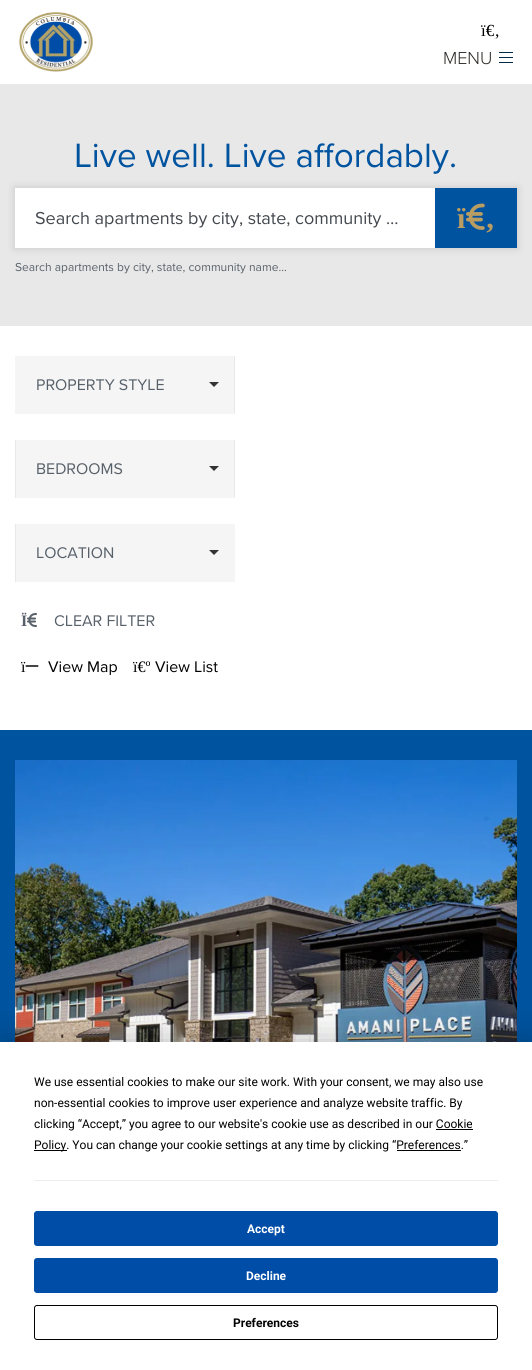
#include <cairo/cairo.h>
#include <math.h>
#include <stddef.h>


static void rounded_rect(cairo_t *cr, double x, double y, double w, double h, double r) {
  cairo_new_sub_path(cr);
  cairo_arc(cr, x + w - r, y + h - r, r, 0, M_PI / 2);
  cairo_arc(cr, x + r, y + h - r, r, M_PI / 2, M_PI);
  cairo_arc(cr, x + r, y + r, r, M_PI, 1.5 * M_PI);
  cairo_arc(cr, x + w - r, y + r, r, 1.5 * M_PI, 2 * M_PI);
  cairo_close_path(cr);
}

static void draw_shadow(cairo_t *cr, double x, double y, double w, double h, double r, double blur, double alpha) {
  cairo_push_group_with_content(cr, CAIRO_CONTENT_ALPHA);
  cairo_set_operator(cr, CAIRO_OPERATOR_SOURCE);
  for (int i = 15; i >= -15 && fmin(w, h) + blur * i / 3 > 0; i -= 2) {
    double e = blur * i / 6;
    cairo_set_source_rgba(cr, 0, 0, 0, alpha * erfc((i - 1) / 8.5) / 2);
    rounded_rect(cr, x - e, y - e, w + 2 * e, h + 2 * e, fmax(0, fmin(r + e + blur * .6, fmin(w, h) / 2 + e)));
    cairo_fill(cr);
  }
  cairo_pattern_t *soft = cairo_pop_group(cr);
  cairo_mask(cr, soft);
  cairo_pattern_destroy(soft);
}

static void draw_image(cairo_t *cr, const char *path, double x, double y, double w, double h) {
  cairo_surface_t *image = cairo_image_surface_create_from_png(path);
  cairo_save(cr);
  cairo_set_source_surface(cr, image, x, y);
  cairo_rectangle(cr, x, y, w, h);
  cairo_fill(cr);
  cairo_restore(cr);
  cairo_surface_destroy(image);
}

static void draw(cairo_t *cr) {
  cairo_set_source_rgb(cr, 1, 1, 1);
  cairo_paint(cr);
  draw_image(cr, "images/1.png", 18, 12, 75, 60);
  cairo_set_source_rgb(cr, 0, 41 / 255.0, 66 / 255.0);
  cairo_rectangle(cr, 499, 52, 14, 1);
  cairo_fill(cr);
  cairo_rectangle(cr, 499, 57, 14, 1);
  cairo_fill(cr);
  cairo_rectangle(cr, 499, 62, 14, 1);
  cairo_fill(cr);
  cairo_set_source_rgb(cr, 232 / 255.0, 232 / 255.0, 232 / 255.0);
  cairo_rectangle(cr, 0, 84, 532, 242);
  cairo_fill(cr);
  cairo_set_source_rgb(cr, 0, 0, 0);
  draw_shadow(cr, 14, 187, 504, 62, 0, 4, 0.12);
  cairo_set_source_rgb(cr, 1, 1, 1);
  cairo_rectangle(cr, 15, 188, 420, 60);
  cairo_fill(cr);
  cairo_set_source_rgb(cr, 0, 83 / 255.0, 159 / 255.0);
  cairo_rectangle(cr, 435, 188, 82, 60);
  cairo_fill(cr);
  draw_image(cr, "images/2.png", 466, 203, 19, 27);
  cairo_set_source_rgb(cr, 245 / 255.0, 245 / 255.0, 245 / 255.0);
  cairo_rectangle(cr, 15, 356, 219, 57);
  cairo_fill(cr);
  cairo_set_source_rgb(cr, 232 / 255.0, 232 / 255.0, 232 / 255.0);
  cairo_rectangle(cr, 234, 356, 1, 58);
  cairo_fill(cr);
  cairo_set_source_rgb(cr, 245 / 255.0, 245 / 255.0, 245 / 255.0);
  cairo_rectangle(cr, 15, 413, 220, 1);
  cairo_fill(cr);
  cairo_set_source_rgb(cr, 51 / 255.0, 51 / 255.0, 51 / 255.0);
  cairo_new_path(cr);
  cairo_move_to(cr, 209, 382);
  cairo_line_to(cr, 219, 382);
  cairo_line_to(cr, 214, 387);
  cairo_close_path(cr);
  cairo_fill(cr);
  cairo_set_source_rgb(cr, 245 / 255.0, 245 / 255.0, 245 / 255.0);
  cairo_rectangle(cr, 16, 440, 218, 57);
  cairo_fill(cr);
  cairo_set_source_rgb(cr, 232 / 255.0, 232 / 255.0, 232 / 255.0);
  cairo_rectangle(cr, 234, 440, 1, 58);
  cairo_fill(cr);
  cairo_set_source_rgb(cr, 245 / 255.0, 245 / 255.0, 245 / 255.0);
  cairo_rectangle(cr, 15, 497, 220, 1);
  cairo_fill(cr);
  cairo_set_source_rgb(cr, 232 / 255.0, 232 / 255.0, 232 / 255.0);
  cairo_rectangle(cr, 15, 440, 1, 58);
  cairo_fill(cr);
  cairo_set_source_rgb(cr, 51 / 255.0, 51 / 255.0, 51 / 255.0);
  cairo_new_path(cr);
  cairo_move_to(cr, 209, 466);
  cairo_line_to(cr, 219, 466);
  cairo_line_to(cr, 214, 471);
  cairo_close_path(cr);
  cairo_fill(cr);
  cairo_set_source_rgb(cr, 245 / 255.0, 245 / 255.0, 245 / 255.0);
  cairo_rectangle(cr, 16, 524, 219, 58);
  cairo_fill(cr);
  cairo_set_source_rgb(cr, 232 / 255.0, 232 / 255.0, 232 / 255.0);
  cairo_rectangle(cr, 15, 524, 1, 58);
  cairo_fill(cr);
  cairo_set_source_rgb(cr, 51 / 255.0, 51 / 255.0, 51 / 255.0);
  cairo_new_path(cr);
  cairo_move_to(cr, 209, 550);
  cairo_line_to(cr, 219, 550);
  cairo_line_to(cr, 214, 555);
  cairo_close_path(cr);
  cairo_fill(cr);
  draw_image(cr, "images/3.png", 27, 613, 10, 14);
  draw_image(cr, "images/4.png", 25, 665, 14, 2);
  cairo_set_source_rgb(cr, 0, 83 / 255.0, 159 / 255.0);
  cairo_rectangle(cr, 0, 730, 532, 312);
  cairo_fill(cr);
  draw_image(cr, "images/5.png", 15, 760, 502, 282);
  cairo_set_source_rgb(cr, 0, 0, 0);
  draw_shadow(cr, 0, 1042, 532, 328, 0, 17.5, 0.25);
  cairo_set_source_rgb(cr, 1, 1, 1);
  cairo_rectangle(cr, 0, 1042, 532, 328);
  cairo_fill(cr);
  cairo_set_source_rgb(cr, 0, 0, 0);
  cairo_rectangle(cr, 436, 1129, 37, 1);
  cairo_fill(cr);
  cairo_rectangle(cr, 34, 1150, 33, 1);
  cairo_fill(cr);
  cairo_rectangle(cr, 397, 1150, 64, 1);
  cairo_fill(cr);
  cairo_set_source_rgb(cr, 237 / 255.0, 237 / 255.0, 239 / 255.0);
  cairo_rectangle(cr, 34, 1180, 464, 1);
  cairo_fill(cr);
  cairo_set_source_rgb(cr, 0, 77 / 255.0, 168 / 255.0);
  rounded_rect(cr, 34.5, 1211.5, 463, 34, 2.5);
  cairo_fill_preserve(cr);
  cairo_set_line_width(cr, 1);
  cairo_stroke(cr);
  rounded_rect(cr, 34.5, 1258.5, 463, 34, 2.5);
  cairo_fill_preserve(cr);
  cairo_stroke(cr);
  rounded_rect(cr, 34.5, 1305.5, 463, 34, 2.5);
  cairo_set_source_rgb(cr, 0, 0, 0);
  cairo_stroke(cr);
  cairo_select_font_face(cr, "Liberation Serif", CAIRO_FONT_SLANT_NORMAL, CAIRO_FONT_WEIGHT_NORMAL);
  cairo_set_font_size(cr, 17);
  cairo_move_to(cr, 481, 36);
  cairo_show_text(cr, "ï€‚");
  cairo_select_font_face(cr, "Proxima Nova Light", CAIRO_FONT_SLANT_NORMAL, CAIRO_FONT_WEIGHT_NORMAL);
  cairo_set_font_size(cr, 18);
  cairo_set_source_rgb(cr, 45 / 255.0, 41 / 255.0, 38 / 255.0);
  cairo_move_to(cr, 443, 64);
  cairo_show_text(cr, "MENU");
  cairo_select_font_face(cr, "Proxima Nova", CAIRO_FONT_SLANT_NORMAL, CAIRO_FONT_WEIGHT_NORMAL);
  cairo_set_font_size(cr, 35);
  cairo_set_source_rgb(cr, 0, 83 / 255.0, 159 / 255.0);
  cairo_move_to(cr, 74, 167);
  cairo_show_text(cr, "Live well. Live affordably.");
  cairo_set_font_size(cr, 18);
  cairo_set_source_rgb(cr, 66 / 255.0, 72 / 255.0, 78 / 255.0);
  cairo_move_to(cr, 35, 224);
  cairo_show_text(cr, "Search apartments by city, state, community …");
  cairo_select_font_face(cr, "Liberation Serif", CAIRO_FONT_SLANT_NORMAL, CAIRO_FONT_WEIGHT_BOLD);
  cairo_set_font_size(cr, 30);
  cairo_set_source_rgb(cr, 186 / 255.0, 157 / 255.0, 99 / 255.0);
  cairo_move_to(cr, 457, 228);
  cairo_show_text(cr, "ï");
  cairo_move_to(cr, 485, 228);
  cairo_show_text(cr, "‚");
  cairo_select_font_face(cr, "Proxima Nova", CAIRO_FONT_SLANT_NORMAL, CAIRO_FONT_WEIGHT_NORMAL);
  cairo_set_font_size(cr, 12);
  cairo_set_source_rgb(cr, 88 / 255.0, 97 / 255.0, 106 / 255.0);
  cairo_move_to(cr, 15, 271);
  cairo_show_text(cr, "Search apartments by city, state, community name…");
  cairo_set_font_size(cr, 16);
  cairo_move_to(cr, 36, 390);
  cairo_show_text(cr, "PROPERTY STYLE");
  cairo_move_to(cr, 36, 474);
  cairo_show_text(cr, "BEDROOMS");
  cairo_move_to(cr, 36, 558);
  cairo_show_text(cr, "LOCATION");
  cairo_select_font_face(cr, "Liberation Serif", CAIRO_FONT_SLANT_NORMAL, CAIRO_FONT_WEIGHT_BOLD);
  cairo_move_to(cr, 21, 626);
  cairo_show_text(cr, "Ï");
  cairo_select_font_face(cr, "Proxima Nova", CAIRO_FONT_SLANT_NORMAL, CAIRO_FONT_WEIGHT_NORMAL);
  cairo_move_to(cr, 54, 626);
  cairo_show_text(cr, "CLEAR FILTER");
  cairo_select_font_face(cr, "Liberation Serif", CAIRO_FONT_SLANT_NORMAL, CAIRO_FONT_WEIGHT_NORMAL);
  cairo_set_source_rgb(cr, 0, 0, 0);
  cairo_move_to(cr, 21, 672);
  cairo_show_text(cr, "ï");
  cairo_select_font_face(cr, "Proxima Nova", CAIRO_FONT_SLANT_NORMAL, CAIRO_FONT_WEIGHT_NORMAL);
  cairo_move_to(cr, 48, 672);
  cairo_show_text(cr, "View Map");
  cairo_select_font_face(cr, "Liberation Serif", CAIRO_FONT_SLANT_NORMAL, CAIRO_FONT_WEIGHT_NORMAL);
  cairo_move_to(cr, 133, 672);
  cairo_show_text(cr, "ï€º");
  cairo_select_font_face(cr, "Proxima Nova", CAIRO_FONT_SLANT_NORMAL, CAIRO_FONT_WEIGHT_NORMAL);
  cairo_move_to(cr, 155, 672);
  cairo_show_text(cr, "View List");
  cairo_select_font_face(cr, "Roboto", CAIRO_FONT_SLANT_NORMAL, CAIRO_FONT_WEIGHT_NORMAL);
  cairo_set_font_size(cr, 12);
  cairo_move_to(cr, 34, 1086);
  cairo_show_text(cr, "We use essential cookies to make our site work. With your consent, we may also use");
  cairo_move_to(cr, 34, 1107);
  cairo_show_text(cr, "non-essential cookies to improve user experience and analyze website traffic. By");
  cairo_move_to(cr, 34, 1128);
  cairo_show_text(cr, "clicking “Accept,” you agree to our website's cookie use as described in our Cookie");
  cairo_move_to(cr, 34, 1149);
  cairo_show_text(cr, "Policy. You can change your cookie settings at any time by clicking “Preferences.”");
  cairo_select_font_face(cr, "Roboto", CAIRO_FONT_SLANT_NORMAL, CAIRO_FONT_WEIGHT_BOLD);
  cairo_set_source_rgb(cr, 1, 1, 1);
  cairo_move_to(cr, 247, 1233);
  cairo_show_text(cr, "Accept");
  cairo_move_to(cr, 246, 1280);
  cairo_show_text(cr, "Decline");
  cairo_set_source_rgb(cr, 0, 0, 0);
  cairo_move_to(cr, 233, 1327);
  cairo_show_text(cr, "Preferences");
}

int main(void) {
  cairo_surface_t *surface = cairo_image_surface_create(CAIRO_FORMAT_RGB24, 532, 1370);
  cairo_t *cr = cairo_create(surface);
  cairo_font_options_t *options = cairo_font_options_create();
  cairo_font_options_set_hint_metrics(options, CAIRO_HINT_METRICS_OFF);
  cairo_font_options_set_hint_style(options, CAIRO_HINT_STYLE_NONE);
  cairo_set_font_options(cr, options);
  cairo_set_miter_limit(cr, 4);
  draw(cr);
  cairo_surface_write_to_png(surface, "out.png");
  cairo_font_options_destroy(options);
  cairo_destroy(cr);
  cairo_surface_destroy(surface);
  return 0;
}
